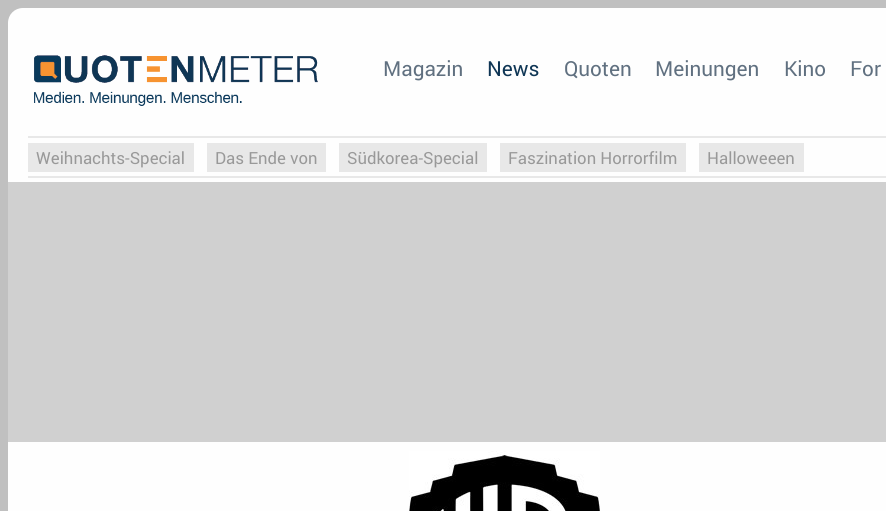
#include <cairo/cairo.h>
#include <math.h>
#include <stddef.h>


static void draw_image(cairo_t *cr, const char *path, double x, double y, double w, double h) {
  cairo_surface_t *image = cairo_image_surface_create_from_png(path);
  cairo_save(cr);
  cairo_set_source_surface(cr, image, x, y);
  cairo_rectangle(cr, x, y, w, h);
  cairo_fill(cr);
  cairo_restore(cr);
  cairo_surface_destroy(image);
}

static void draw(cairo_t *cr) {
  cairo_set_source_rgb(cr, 192 / 255.0, 192 / 255.0, 192 / 255.0);
  cairo_paint(cr);
  cairo_set_source_rgb(cr, 254 / 255.0, 254 / 255.0, 254 / 255.0);
  cairo_rectangle(cr, 8, 136, 878, 375);
  cairo_fill(cr);
  cairo_new_path(cr);
  cairo_move_to(cr, 23, 8);
  cairo_line_to(cr, 886, 8);
  cairo_curve_to(cr, 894.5, 8, 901, 14.5, 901, 23);
  cairo_line_to(cr, 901, 136);
  cairo_line_to(cr, 8, 136);
  cairo_line_to(cr, 8, 23);
  cairo_curve_to(cr, 8, 14.5, 14.5, 8, 23, 8);
  cairo_close_path(cr);
  cairo_fill(cr);
  draw_image(cr, "images/1.png", 34, 55, 284, 51);
  cairo_set_source_rgb(cr, 232 / 255.0, 232 / 255.0, 232 / 255.0);
  cairo_rectangle(cr, 28, 136, 858, 2);
  cairo_fill(cr);
  cairo_rectangle(cr, 28, 176, 858, 2);
  cairo_fill(cr);
  cairo_rectangle(cr, 28, 143, 166, 29);
  cairo_fill(cr);
  cairo_rectangle(cr, 207, 143, 119, 29);
  cairo_fill(cr);
  cairo_rectangle(cr, 339, 143, 148, 29);
  cairo_fill(cr);
  cairo_rectangle(cr, 500, 143, 186, 29);
  cairo_fill(cr);
  cairo_rectangle(cr, 699, 143, 105, 29);
  cairo_fill(cr);
  cairo_set_source_rgb(cr, 208 / 255.0, 208 / 255.0, 208 / 255.0);
  cairo_rectangle(cr, 8, 182, 878, 260);
  cairo_fill(cr);
  draw_image(cr, "images/2.png", 409, 451, 191, 60);
  cairo_select_font_face(cr, "Roboto", CAIRO_FONT_SLANT_NORMAL, CAIRO_FONT_WEIGHT_NORMAL);
  cairo_set_font_size(cr, 20.75);
  cairo_set_source_rgb(cr, 96 / 255.0, 112 / 255.0, 128 / 255.0);
  cairo_move_to(cr, 383, 76);
  cairo_show_text(cr, "Magazin");
  cairo_set_source_rgb(cr, 15 / 255.0, 54 / 255.0, 85 / 255.0);
  cairo_move_to(cr, 487, 76);
  cairo_show_text(cr, "News");
  cairo_set_source_rgb(cr, 96 / 255.0, 112 / 255.0, 128 / 255.0);
  cairo_move_to(cr, 564, 76);
  cairo_show_text(cr, "Quoten");
  cairo_move_to(cr, 655, 76);
  cairo_show_text(cr, "Meinungen");
  cairo_move_to(cr, 784, 76);
  cairo_show_text(cr, "Kino");
  cairo_move_to(cr, 850, 76);
  cairo_show_text(cr, "For");
  cairo_set_font_size(cr, 16.75);
  cairo_set_source_rgb(cr, 153 / 255.0, 153 / 255.0, 153 / 255.0);
  cairo_move_to(cr, 36, 164);
  cairo_show_text(cr, "Weihnachts-Special");
  cairo_move_to(cr, 215, 164);
  cairo_show_text(cr, "Das Ende von");
  cairo_move_to(cr, 347, 164);
  cairo_show_text(cr, "Südkorea-Special");
  cairo_move_to(cr, 508, 164);
  cairo_show_text(cr, "Faszination Horrorfilm");
  cairo_move_to(cr, 707, 164);
  cairo_show_text(cr, "Halloweeen");
}

int main(void) {
  cairo_surface_t *surface = cairo_image_surface_create(CAIRO_FORMAT_RGB24, 886, 511);
  cairo_t *cr = cairo_create(surface);
  cairo_font_options_t *options = cairo_font_options_create();
  cairo_font_options_set_hint_metrics(options, CAIRO_HINT_METRICS_OFF);
  cairo_font_options_set_hint_style(options, CAIRO_HINT_STYLE_NONE);
  cairo_set_font_options(cr, options);
  cairo_set_miter_limit(cr, 4);
  draw(cr);
  cairo_surface_write_to_png(surface, "out.png");
  cairo_font_options_destroy(options);
  cairo_destroy(cr);
  cairo_surface_destroy(surface);
  return 0;
}
